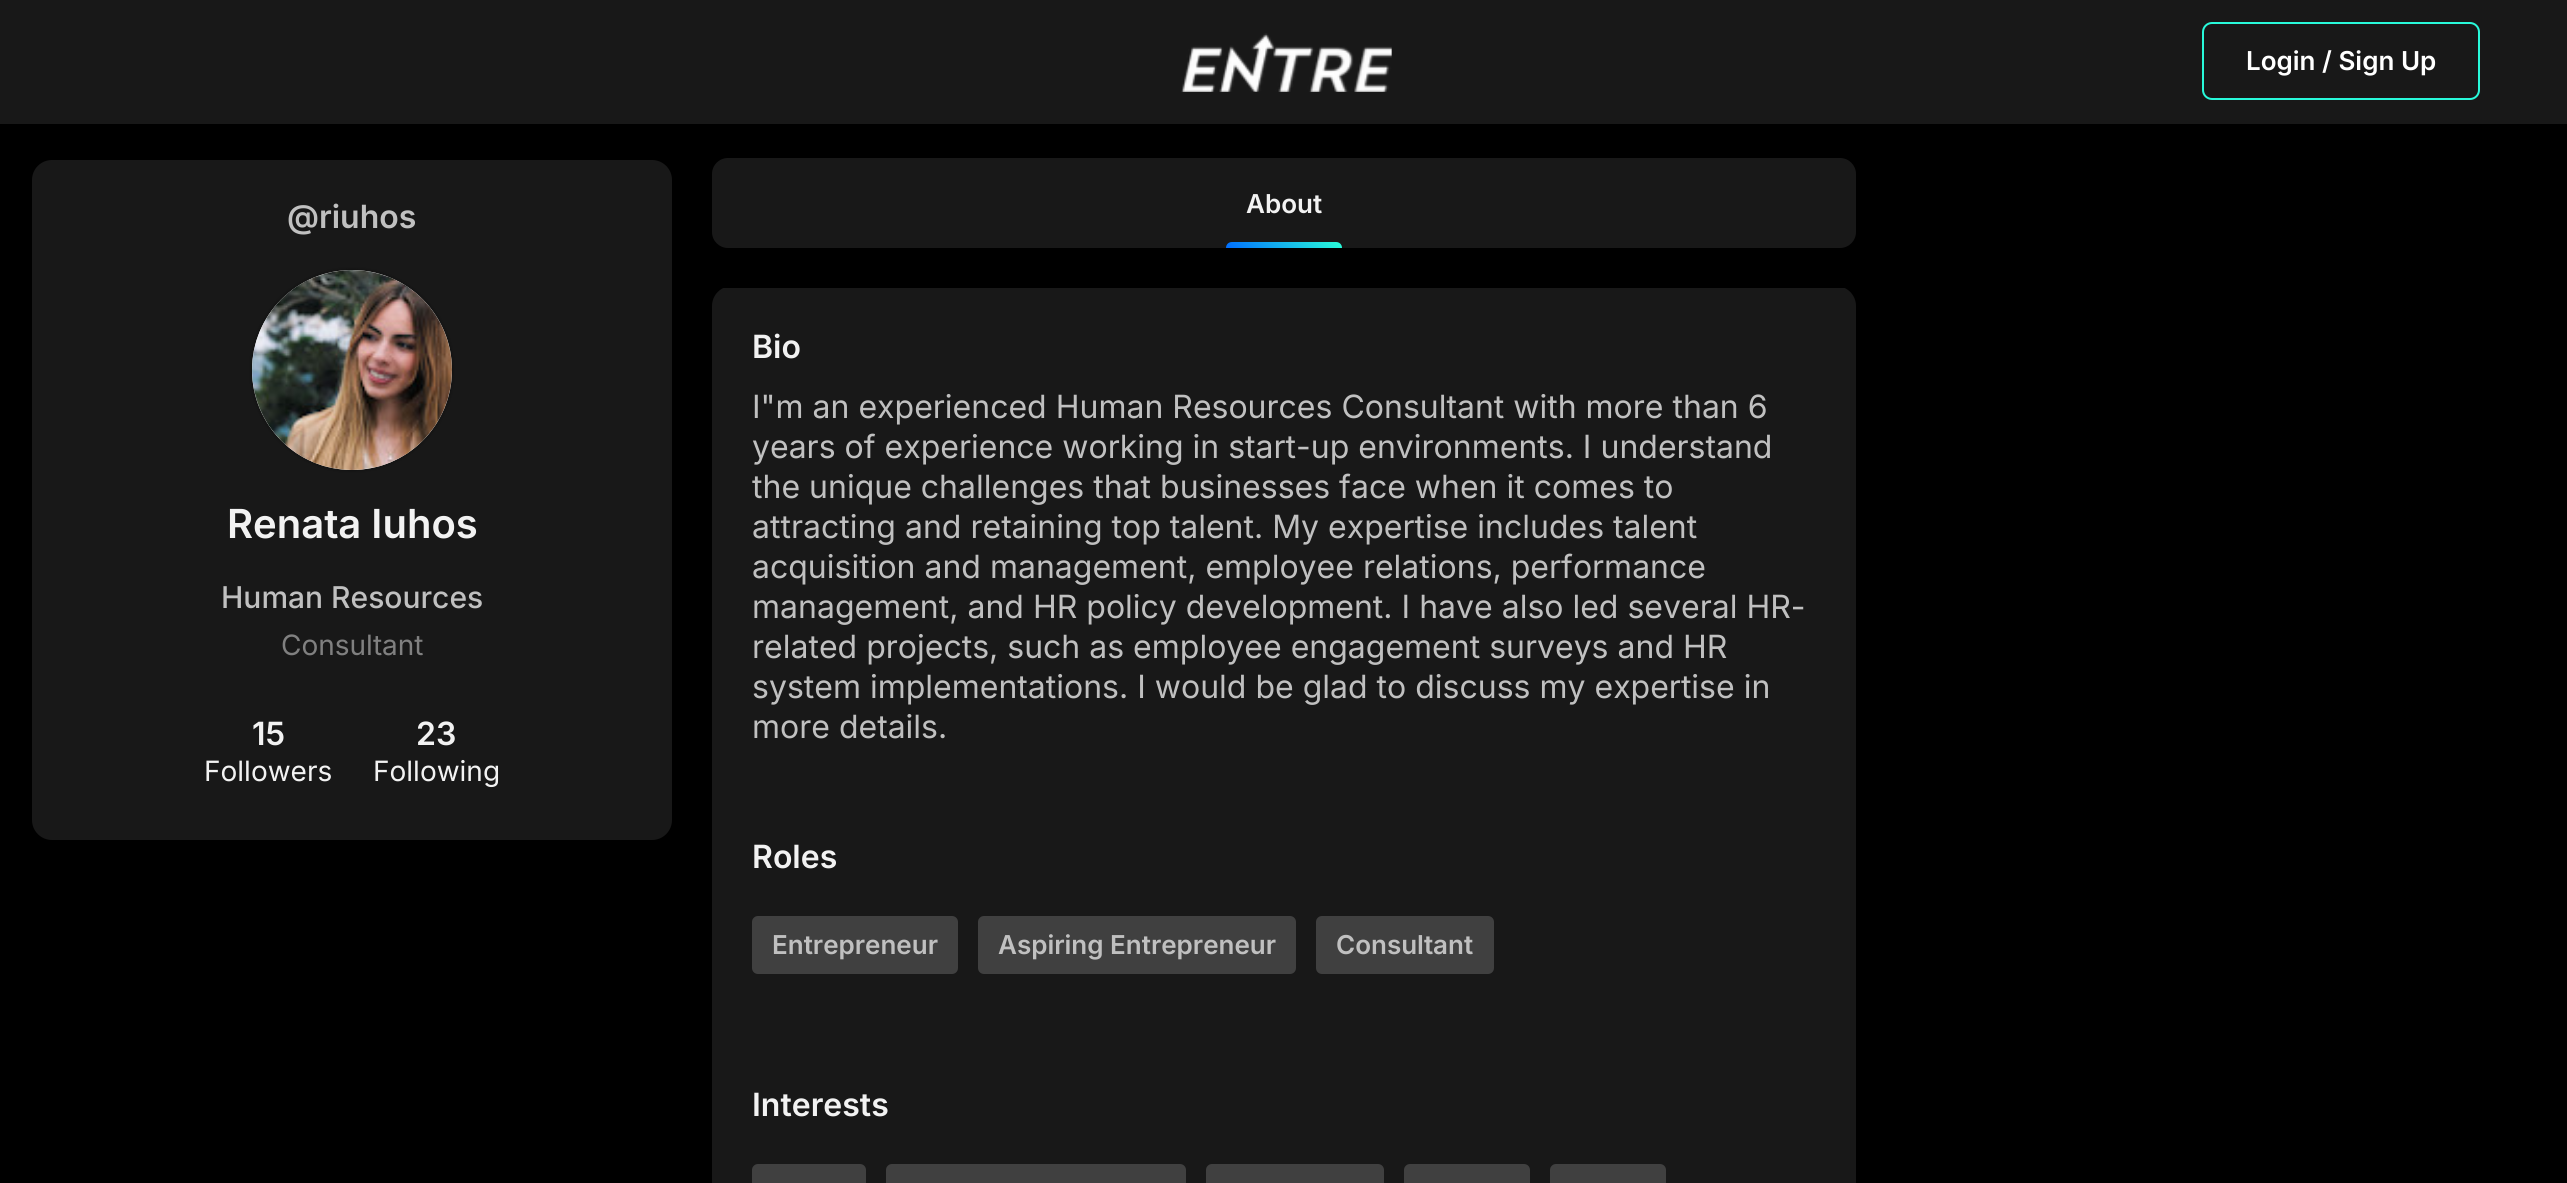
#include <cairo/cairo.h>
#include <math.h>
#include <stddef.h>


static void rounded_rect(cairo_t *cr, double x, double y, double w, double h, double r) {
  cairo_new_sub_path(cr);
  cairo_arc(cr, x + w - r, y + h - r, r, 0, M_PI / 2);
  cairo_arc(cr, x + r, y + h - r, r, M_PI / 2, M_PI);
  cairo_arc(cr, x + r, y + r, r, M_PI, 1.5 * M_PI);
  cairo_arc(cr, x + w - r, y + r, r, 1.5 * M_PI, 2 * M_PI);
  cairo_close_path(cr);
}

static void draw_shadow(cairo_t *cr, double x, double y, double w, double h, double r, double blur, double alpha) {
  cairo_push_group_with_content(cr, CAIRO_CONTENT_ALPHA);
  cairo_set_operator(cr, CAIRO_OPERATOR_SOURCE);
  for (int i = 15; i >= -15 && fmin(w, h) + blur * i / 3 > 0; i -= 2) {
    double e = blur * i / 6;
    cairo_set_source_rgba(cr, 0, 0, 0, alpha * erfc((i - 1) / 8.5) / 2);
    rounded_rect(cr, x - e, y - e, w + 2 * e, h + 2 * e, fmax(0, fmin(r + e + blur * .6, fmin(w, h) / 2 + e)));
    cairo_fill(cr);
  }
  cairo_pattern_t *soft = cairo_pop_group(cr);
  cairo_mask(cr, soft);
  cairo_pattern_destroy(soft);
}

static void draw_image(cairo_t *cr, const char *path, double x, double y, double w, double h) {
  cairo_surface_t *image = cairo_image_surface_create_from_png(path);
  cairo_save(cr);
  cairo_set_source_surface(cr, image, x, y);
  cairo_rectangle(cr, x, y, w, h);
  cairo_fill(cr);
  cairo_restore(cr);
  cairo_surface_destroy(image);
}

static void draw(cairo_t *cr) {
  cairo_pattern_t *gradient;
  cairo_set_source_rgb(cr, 0, 0, 0);
  cairo_paint(cr);
  cairo_set_source_rgb(cr, 24 / 255.0, 24 / 255.0, 24 / 255.0);
  cairo_rectangle(cr, 0, 0, 2567, 124);
  cairo_fill(cr);
  draw_image(cr, "images/1.png", 1181, 33, 211, 59);
  rounded_rect(cr, 2203, 23, 276, 76, 9);
  cairo_set_source_rgb(cr, 40 / 255.0, 249 / 255.0, 218 / 255.0);
  cairo_stroke(cr);
  cairo_set_source_rgb(cr, 24 / 255.0, 24 / 255.0, 24 / 255.0);
  rounded_rect(cr, 32, 160, 640, 680, 20);
  cairo_fill(cr);
  cairo_set_source_rgb(cr, 0, 0, 0);
  draw_shadow(cr, 252, 270, 200, 200, 100, 2, 0.5);
  cairo_set_source_rgb(cr, 242 / 255.0, 242 / 255.0, 242 / 255.0);
  cairo_arc(cr, 352, 370, 100, 0, 2 * M_PI);
  cairo_fill(cr);
  draw_image(cr, "images/2.png", 252, 270, 200, 200);
  cairo_set_source_rgb(cr, 24 / 255.0, 24 / 255.0, 24 / 255.0);
  rounded_rect(cr, 712, 286, 1144, 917, 20);
  cairo_fill(cr);
  cairo_set_source_rgb(cr, 0, 0, 0);
  cairo_rectangle(cr, 723, 286, 1122, 2);
  cairo_fill(cr);
  cairo_set_source_rgb(cr, 24 / 255.0, 24 / 255.0, 24 / 255.0);
  rounded_rect(cr, 712, 158, 1144, 90, 16);
  cairo_fill(cr);
  gradient = cairo_pattern_create_linear(1312, 334, 1489, 157);
  cairo_pattern_add_color_stop_rgba(gradient, 0, 0, 109 / 255.0, 1, 1);
  cairo_pattern_add_color_stop_rgba(gradient, 0.33, 40 / 255.0, 249 / 255.0, 218 / 255.0, 1);
  cairo_pattern_add_color_stop_rgba(gradient, 0.67, 0, 109 / 255.0, 1, 1);
  cairo_pattern_add_color_stop_rgba(gradient, 1, 40 / 255.0, 249 / 255.0, 218 / 255.0, 1);
  cairo_set_source(cr, gradient);
  cairo_pattern_destroy(gradient);
  cairo_new_path(cr);
  cairo_move_to(cr, 1232, 242);
  cairo_line_to(cr, 1336, 242);
  cairo_curve_to(cr, 1339.5, 242, 1342, 244.5, 1342, 248);
  cairo_line_to(cr, 1226, 248);
  cairo_curve_to(cr, 1226, 244.5, 1228.5, 242, 1232, 242);
  cairo_close_path(cr);
  cairo_fill(cr);
  cairo_set_source_rgb(cr, 64 / 255.0, 64 / 255.0, 64 / 255.0);
  rounded_rect(cr, 752, 916, 206, 58, 6);
  cairo_fill(cr);
  rounded_rect(cr, 978, 916, 318, 58, 6);
  cairo_fill(cr);
  rounded_rect(cr, 1316, 916, 178, 58, 6);
  cairo_fill(cr);
  rounded_rect(cr, 752, 1164, 114, 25, 6);
  cairo_fill(cr);
  rounded_rect(cr, 886, 1164, 300, 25, 6);
  cairo_fill(cr);
  rounded_rect(cr, 1206, 1164, 178, 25, 6);
  cairo_fill(cr);
  rounded_rect(cr, 1404, 1164, 126, 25, 6);
  cairo_fill(cr);
  rounded_rect(cr, 1550, 1164, 116, 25, 6);
  cairo_fill(cr);
  cairo_select_font_face(cr, "Inter SemiBold", CAIRO_FONT_SLANT_NORMAL, CAIRO_FONT_WEIGHT_NORMAL);
  cairo_set_font_size(cr, 26);
  cairo_set_source_rgb(cr, 1, 1, 1);
  cairo_move_to(cr, 2246, 70);
  cairo_show_text(cr, "Login / Sign Up");
  cairo_set_font_size(cr, 32);
  cairo_set_source_rgb(cr, 192 / 255.0, 192 / 255.0, 192 / 255.0);
  cairo_move_to(cr, 287, 228);
  cairo_show_text(cr, "@riuhos");
  cairo_set_font_size(cr, 40);
  cairo_set_source_rgb(cr, 242 / 255.0, 242 / 255.0, 242 / 255.0);
  cairo_move_to(cr, 227, 538);
  cairo_show_text(cr, "Renata Iuhos");
  cairo_select_font_face(cr, "Inter Medium", CAIRO_FONT_SLANT_NORMAL, CAIRO_FONT_WEIGHT_NORMAL);
  cairo_set_font_size(cr, 30);
  cairo_set_source_rgb(cr, 192 / 255.0, 192 / 255.0, 192 / 255.0);
  cairo_move_to(cr, 221, 608);
  cairo_show_text(cr, "Human Resources");
  cairo_select_font_face(cr, "Inter", CAIRO_FONT_SLANT_NORMAL, CAIRO_FONT_WEIGHT_NORMAL);
  cairo_set_font_size(cr, 28);
  cairo_set_source_rgb(cr, 128 / 255.0, 128 / 255.0, 128 / 255.0);
  cairo_move_to(cr, 281, 655);
  cairo_show_text(cr, "Consultant");
  cairo_select_font_face(cr, "Inter SemiBold", CAIRO_FONT_SLANT_NORMAL, CAIRO_FONT_WEIGHT_NORMAL);
  cairo_set_font_size(cr, 32);
  cairo_set_source_rgb(cr, 242 / 255.0, 242 / 255.0, 242 / 255.0);
  cairo_move_to(cr, 252, 745);
  cairo_show_text(cr, "15");
  cairo_select_font_face(cr, "Inter", CAIRO_FONT_SLANT_NORMAL, CAIRO_FONT_WEIGHT_NORMAL);
  cairo_set_font_size(cr, 28);
  cairo_move_to(cr, 204, 781);
  cairo_show_text(cr, "Followers");
  cairo_select_font_face(cr, "Inter SemiBold", CAIRO_FONT_SLANT_NORMAL, CAIRO_FONT_WEIGHT_NORMAL);
  cairo_set_font_size(cr, 32);
  cairo_move_to(cr, 416, 745);
  cairo_show_text(cr, "23");
  cairo_select_font_face(cr, "Inter", CAIRO_FONT_SLANT_NORMAL, CAIRO_FONT_WEIGHT_NORMAL);
  cairo_set_font_size(cr, 28);
  cairo_move_to(cr, 373, 781);
  cairo_show_text(cr, "Following");
  cairo_select_font_face(cr, "Inter SemiBold", CAIRO_FONT_SLANT_NORMAL, CAIRO_FONT_WEIGHT_NORMAL);
  cairo_set_font_size(cr, 26);
  cairo_move_to(cr, 1246, 213);
  cairo_show_text(cr, "About");
  cairo_set_font_size(cr, 32);
  cairo_move_to(cr, 752, 358);
  cairo_show_text(cr, "Bio");
  cairo_select_font_face(cr, "Inter", CAIRO_FONT_SLANT_NORMAL, CAIRO_FONT_WEIGHT_NORMAL);
  cairo_set_source_rgb(cr, 192 / 255.0, 192 / 255.0, 192 / 255.0);
  cairo_move_to(cr, 752, 418);
  cairo_show_text(cr, "I\"m an experienced Human Resources Consultant with more than 6");
  cairo_move_to(cr, 752, 458);
  cairo_show_text(cr, "years of experience working in start-up environments. I understand");
  cairo_move_to(cr, 752, 498);
  cairo_show_text(cr, "the unique challenges that businesses face when it comes to");
  cairo_move_to(cr, 752, 538);
  cairo_show_text(cr, "attracting and retaining top talent. My expertise includes talent");
  cairo_move_to(cr, 752, 578);
  cairo_show_text(cr, "acquisition and management, employee relations, performance");
  cairo_move_to(cr, 752, 618);
  cairo_show_text(cr, "management, and HR policy development. I have also led several HR-");
  cairo_move_to(cr, 752, 658);
  cairo_show_text(cr, "related projects, such as employee engagement surveys and HR");
  cairo_move_to(cr, 752, 698);
  cairo_show_text(cr, "system implementations. I would be glad to discuss my expertise in");
  cairo_move_to(cr, 752, 738);
  cairo_show_text(cr, "more details.");
  cairo_select_font_face(cr, "Inter SemiBold", CAIRO_FONT_SLANT_NORMAL, CAIRO_FONT_WEIGHT_NORMAL);
  cairo_set_source_rgb(cr, 242 / 255.0, 242 / 255.0, 242 / 255.0);
  cairo_move_to(cr, 752, 868);
  cairo_show_text(cr, "Roles");
  cairo_set_font_size(cr, 26);
  cairo_set_source_rgb(cr, 192 / 255.0, 192 / 255.0, 192 / 255.0);
  cairo_move_to(cr, 772, 954);
  cairo_show_text(cr, "Entrepreneur");
  cairo_move_to(cr, 998, 954);
  cairo_show_text(cr, "Aspiring Entrepreneur");
  cairo_move_to(cr, 1336, 954);
  cairo_show_text(cr, "Consultant");
  cairo_set_font_size(cr, 32);
  cairo_set_source_rgb(cr, 242 / 255.0, 242 / 255.0, 242 / 255.0);
  cairo_move_to(cr, 752, 1116);
  cairo_show_text(cr, "Interests");
}

int main(void) {
  cairo_surface_t *surface = cairo_image_surface_create(CAIRO_FORMAT_RGB24, 2567, 1183);
  cairo_t *cr = cairo_create(surface);
  cairo_font_options_t *options = cairo_font_options_create();
  cairo_font_options_set_hint_metrics(options, CAIRO_HINT_METRICS_OFF);
  cairo_font_options_set_hint_style(options, CAIRO_HINT_STYLE_NONE);
  cairo_set_font_options(cr, options);
  cairo_set_miter_limit(cr, 4);
  draw(cr);
  cairo_surface_write_to_png(surface, "out.png");
  cairo_font_options_destroy(options);
  cairo_destroy(cr);
  cairo_surface_destroy(surface);
  return 0;
}
